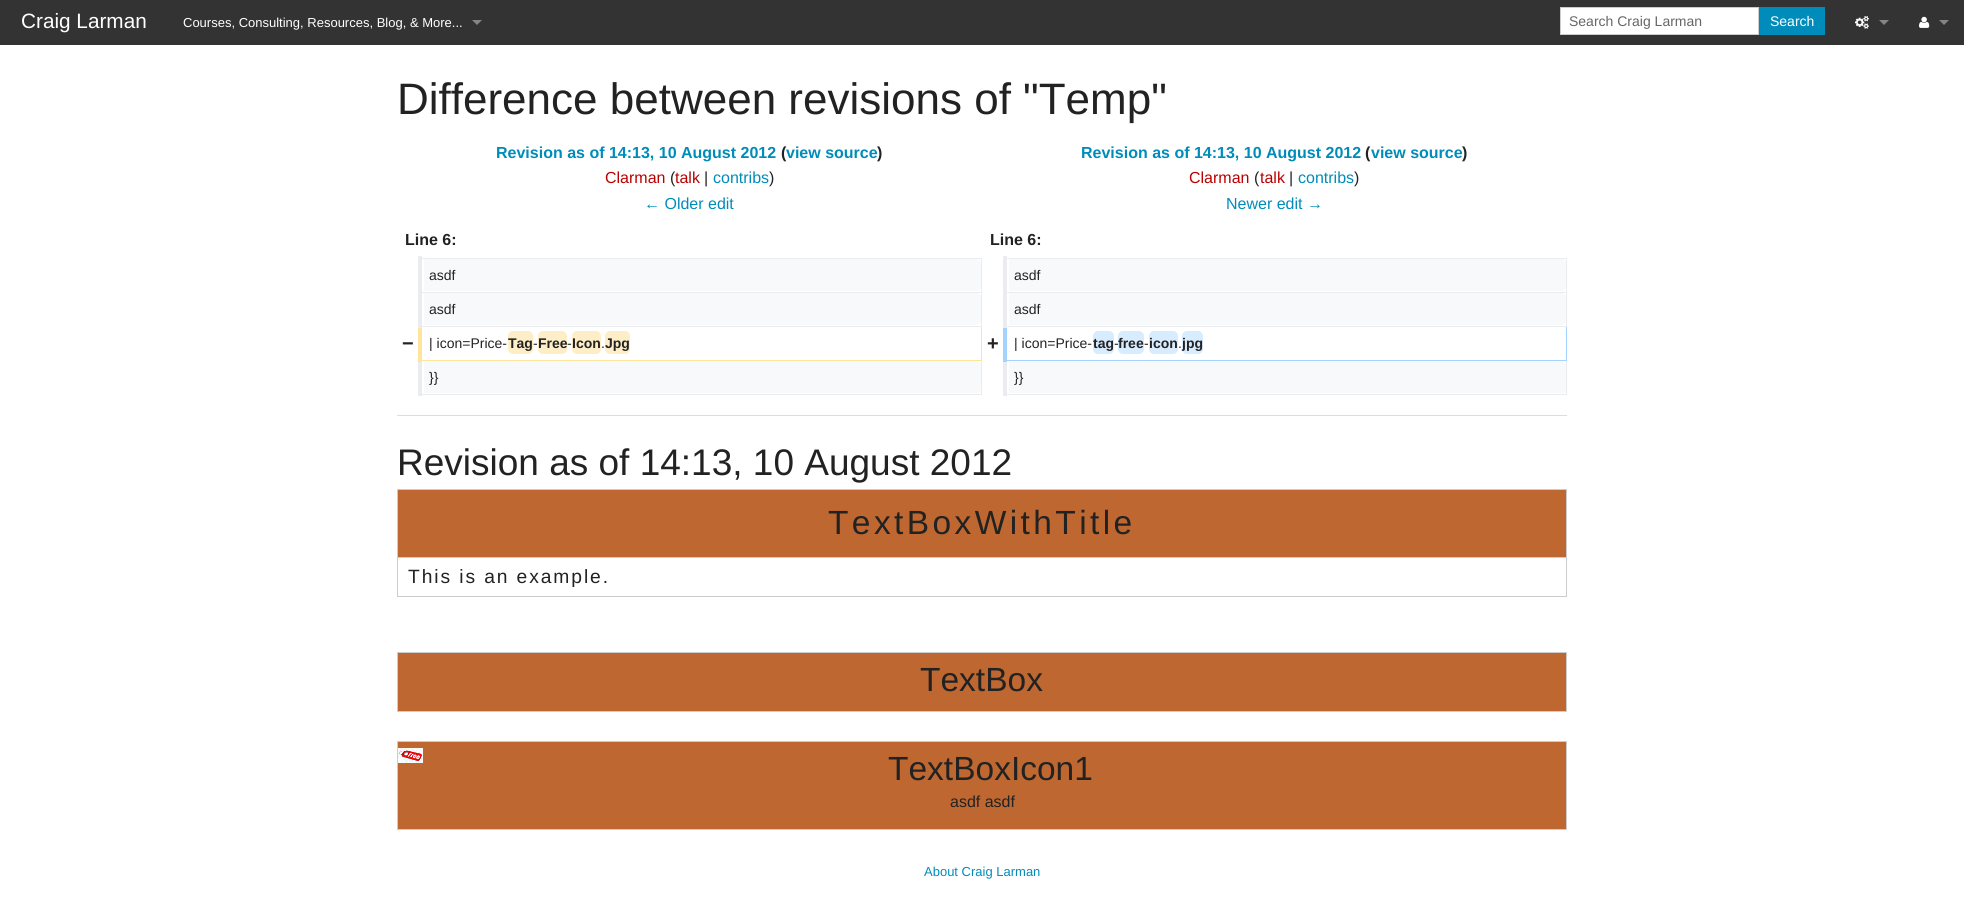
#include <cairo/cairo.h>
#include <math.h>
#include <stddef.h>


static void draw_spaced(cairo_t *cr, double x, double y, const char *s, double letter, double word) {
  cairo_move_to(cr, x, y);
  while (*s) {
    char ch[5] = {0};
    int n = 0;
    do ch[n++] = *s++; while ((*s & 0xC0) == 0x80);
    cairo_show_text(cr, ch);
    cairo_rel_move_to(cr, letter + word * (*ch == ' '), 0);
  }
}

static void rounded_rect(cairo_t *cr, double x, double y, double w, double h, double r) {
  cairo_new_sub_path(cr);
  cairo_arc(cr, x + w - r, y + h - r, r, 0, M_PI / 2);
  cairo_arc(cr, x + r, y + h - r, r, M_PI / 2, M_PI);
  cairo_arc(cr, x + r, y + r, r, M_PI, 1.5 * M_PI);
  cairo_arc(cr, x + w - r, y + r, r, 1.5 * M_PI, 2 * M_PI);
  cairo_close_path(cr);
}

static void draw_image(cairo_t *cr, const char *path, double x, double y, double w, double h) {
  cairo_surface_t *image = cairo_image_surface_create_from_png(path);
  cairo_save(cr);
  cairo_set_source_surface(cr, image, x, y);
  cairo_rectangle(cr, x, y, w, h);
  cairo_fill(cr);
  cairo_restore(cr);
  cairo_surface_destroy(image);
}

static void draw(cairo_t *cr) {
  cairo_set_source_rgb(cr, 1, 1, 1);
  cairo_paint(cr);
  cairo_set_source_rgb(cr, 51 / 255.0, 51 / 255.0, 51 / 255.0);
  cairo_rectangle(cr, 0, 0, 1964, 45);
  cairo_fill(cr);
  cairo_set_source_rgb(cr, 133 / 255.0, 133 / 255.0, 133 / 255.0);
  cairo_new_path(cr);
  cairo_move_to(cr, 472, 20);
  cairo_line_to(cr, 482, 20);
  cairo_line_to(cr, 477, 25);
  cairo_close_path(cr);
  cairo_fill(cr);
  cairo_set_source_rgb(cr, 1, 1, 1);
  cairo_rectangle(cr, 1560.5, 7.5, 198, 27);
  cairo_fill_preserve(cr);
  cairo_set_source_rgb(cr, 204 / 255.0, 204 / 255.0, 204 / 255.0);
  cairo_set_line_width(cr, 1);
  cairo_stroke(cr);
  cairo_set_source_rgb(cr, 0, 140 / 255.0, 186 / 255.0);
  cairo_rectangle(cr, 1759, 7, 66, 28);
  cairo_fill(cr);
  draw_image(cr, "images/1.png", 1855, 16, 14, 13);
  cairo_set_source_rgb(cr, 133 / 255.0, 133 / 255.0, 133 / 255.0);
  cairo_new_path(cr);
  cairo_move_to(cr, 1879, 20);
  cairo_line_to(cr, 1889, 20);
  cairo_line_to(cr, 1884, 25);
  cairo_close_path(cr);
  cairo_fill(cr);
  draw_image(cr, "images/2.png", 1919, 16, 11, 12);
  cairo_new_path(cr);
  cairo_move_to(cr, 1939, 20);
  cairo_line_to(cr, 1949, 20);
  cairo_line_to(cr, 1944, 25);
  cairo_close_path(cr);
  cairo_fill(cr);
  cairo_set_source_rgb(cr, 248 / 255.0, 249 / 255.0, 250 / 255.0);
  cairo_new_path(cr);
  cairo_move_to(cr, 425, 259);
  cairo_line_to(cr, 977, 259);
  cairo_curve_to(cr, 979, 259, 981, 261, 981, 263);
  cairo_line_to(cr, 981, 287);
  cairo_curve_to(cr, 981, 289, 979, 291, 977, 291);
  cairo_line_to(cr, 425, 291);
  cairo_curve_to(cr, 424, 291, 424, 289, 424, 287);
  cairo_line_to(cr, 424, 263);
  cairo_curve_to(cr, 424, 261, 424, 259, 425, 259);
  cairo_close_path(cr);
  cairo_fill(cr);
  cairo_set_source_rgb(cr, 234 / 255.0, 236 / 255.0, 240 / 255.0);
  cairo_rectangle(cr, 420, 258, 562, 1);
  cairo_fill(cr);
  cairo_rectangle(cr, 420, 292, 562, 1);
  cairo_fill(cr);
  cairo_rectangle(cr, 981, 360, 1, 35);
  cairo_fill(cr);
  cairo_set_source_rgb(cr, 1, 228 / 255.0, 156 / 255.0);
  cairo_rectangle(cr, 981, 326, 1, 35);
  cairo_fill(cr);
  cairo_set_source_rgb(cr, 234 / 255.0, 236 / 255.0, 240 / 255.0);
  cairo_rectangle(cr, 981, 292, 1, 35);
  cairo_fill(cr);
  cairo_rectangle(cr, 981, 258, 1, 35);
  cairo_fill(cr);
  cairo_set_source_rgb(cr, 248 / 255.0, 249 / 255.0, 250 / 255.0);
  cairo_new_path(cr);
  cairo_move_to(cr, 1010, 259);
  cairo_line_to(cr, 1562, 259);
  cairo_curve_to(cr, 1564, 259, 1566, 261, 1566, 263);
  cairo_line_to(cr, 1566, 287);
  cairo_curve_to(cr, 1566, 289, 1564, 291, 1562, 291);
  cairo_line_to(cr, 1010, 291);
  cairo_curve_to(cr, 1009, 291, 1009, 289, 1009, 287);
  cairo_line_to(cr, 1009, 263);
  cairo_curve_to(cr, 1009, 261, 1009, 259, 1010, 259);
  cairo_close_path(cr);
  cairo_fill(cr);
  cairo_set_source_rgb(cr, 234 / 255.0, 236 / 255.0, 240 / 255.0);
  cairo_rectangle(cr, 1005, 258, 562, 1);
  cairo_fill(cr);
  cairo_rectangle(cr, 1005, 292, 562, 1);
  cairo_fill(cr);
  cairo_rectangle(cr, 1566, 360, 1, 35);
  cairo_fill(cr);
  cairo_set_source_rgb(cr, 163 / 255.0, 211 / 255.0, 1);
  cairo_rectangle(cr, 1566, 326, 1, 35);
  cairo_fill(cr);
  cairo_set_source_rgb(cr, 234 / 255.0, 236 / 255.0, 240 / 255.0);
  cairo_rectangle(cr, 1566, 292, 1, 35);
  cairo_fill(cr);
  cairo_rectangle(cr, 1566, 258, 1, 35);
  cairo_fill(cr);
  cairo_set_source_rgb(cr, 248 / 255.0, 249 / 255.0, 250 / 255.0);
  cairo_new_path(cr);
  cairo_move_to(cr, 425, 293);
  cairo_line_to(cr, 977, 293);
  cairo_curve_to(cr, 979, 293, 981, 295, 981, 297);
  cairo_line_to(cr, 981, 321);
  cairo_curve_to(cr, 981, 323, 979, 325, 977, 325);
  cairo_line_to(cr, 425, 325);
  cairo_curve_to(cr, 424, 325, 424, 323, 424, 321);
  cairo_line_to(cr, 424, 297);
  cairo_curve_to(cr, 424, 295, 424, 293, 425, 293);
  cairo_close_path(cr);
  cairo_fill(cr);
  cairo_set_source_rgb(cr, 234 / 255.0, 236 / 255.0, 240 / 255.0);
  cairo_rectangle(cr, 420, 326, 562, 1);
  cairo_fill(cr);
  cairo_set_source_rgb(cr, 1, 228 / 255.0, 156 / 255.0);
  cairo_rectangle(cr, 420, 360, 562, 1);
  cairo_fill(cr);
  cairo_set_source_rgb(cr, 234 / 255.0, 236 / 255.0, 240 / 255.0);
  cairo_rectangle(cr, 420, 394, 562, 1);
  cairo_fill(cr);
  cairo_rectangle(cr, 418, 358, 4, 38);
  cairo_fill(cr);
  cairo_set_source_rgb(cr, 1, 228 / 255.0, 156 / 255.0);
  cairo_rectangle(cr, 418, 324, 4, 38);
  cairo_fill(cr);
  cairo_set_source_rgb(cr, 234 / 255.0, 236 / 255.0, 240 / 255.0);
  cairo_rectangle(cr, 418, 256, 4, 72);
  cairo_fill(cr);
  cairo_set_source_rgb(cr, 248 / 255.0, 249 / 255.0, 250 / 255.0);
  cairo_new_path(cr);
  cairo_move_to(cr, 1010, 293);
  cairo_line_to(cr, 1562, 293);
  cairo_curve_to(cr, 1564, 293, 1566, 295, 1566, 297);
  cairo_line_to(cr, 1566, 321);
  cairo_curve_to(cr, 1566, 323, 1564, 325, 1562, 325);
  cairo_line_to(cr, 1010, 325);
  cairo_curve_to(cr, 1009, 325, 1009, 323, 1009, 321);
  cairo_line_to(cr, 1009, 297);
  cairo_curve_to(cr, 1009, 295, 1009, 293, 1010, 293);
  cairo_close_path(cr);
  cairo_fill(cr);
  cairo_set_source_rgb(cr, 234 / 255.0, 236 / 255.0, 240 / 255.0);
  cairo_rectangle(cr, 1005, 326, 562, 1);
  cairo_fill(cr);
  cairo_set_source_rgb(cr, 163 / 255.0, 211 / 255.0, 1);
  cairo_rectangle(cr, 1005, 360, 562, 1);
  cairo_fill(cr);
  cairo_set_source_rgb(cr, 234 / 255.0, 236 / 255.0, 240 / 255.0);
  cairo_rectangle(cr, 1005, 394, 562, 1);
  cairo_fill(cr);
  cairo_rectangle(cr, 1003, 358, 4, 38);
  cairo_fill(cr);
  cairo_set_source_rgb(cr, 163 / 255.0, 211 / 255.0, 1);
  cairo_rectangle(cr, 1003, 324, 4, 38);
  cairo_fill(cr);
  cairo_set_source_rgb(cr, 234 / 255.0, 236 / 255.0, 240 / 255.0);
  cairo_rectangle(cr, 1003, 256, 4, 72);
  cairo_fill(cr);
  cairo_set_source_rgb(cr, 254 / 255.0, 238 / 255.0, 200 / 255.0);
  rounded_rect(cr, 508, 331, 25, 23, 5);
  cairo_fill(cr);
  rounded_rect(cr, 538, 331, 29, 23, 5);
  cairo_fill(cr);
  rounded_rect(cr, 572, 331, 29, 23, 5);
  cairo_fill(cr);
  rounded_rect(cr, 605, 331, 25, 23, 5);
  cairo_fill(cr);
  cairo_set_source_rgb(cr, 216 / 255.0, 236 / 255.0, 1);
  rounded_rect(cr, 1093, 331, 21, 23, 5);
  cairo_fill(cr);
  rounded_rect(cr, 1118, 331, 26, 23, 5);
  cairo_fill(cr);
  rounded_rect(cr, 1149, 331, 29, 23, 5);
  cairo_fill(cr);
  rounded_rect(cr, 1182, 331, 21, 23, 5);
  cairo_fill(cr);
  cairo_set_source_rgb(cr, 248 / 255.0, 249 / 255.0, 250 / 255.0);
  cairo_new_path(cr);
  cairo_move_to(cr, 425, 361);
  cairo_line_to(cr, 977, 361);
  cairo_curve_to(cr, 979, 361, 981, 363, 981, 365);
  cairo_line_to(cr, 981, 389);
  cairo_curve_to(cr, 981, 391, 979, 393, 977, 393);
  cairo_line_to(cr, 425, 393);
  cairo_curve_to(cr, 424, 393, 424, 391, 424, 389);
  cairo_line_to(cr, 424, 365);
  cairo_curve_to(cr, 424, 363, 424, 361, 425, 361);
  cairo_close_path(cr);
  cairo_fill(cr);
  cairo_new_path(cr);
  cairo_move_to(cr, 1010, 361);
  cairo_line_to(cr, 1562, 361);
  cairo_curve_to(cr, 1564, 361, 1566, 363, 1566, 365);
  cairo_line_to(cr, 1566, 389);
  cairo_curve_to(cr, 1566, 391, 1564, 393, 1562, 393);
  cairo_line_to(cr, 1010, 393);
  cairo_curve_to(cr, 1009, 393, 1009, 391, 1009, 389);
  cairo_line_to(cr, 1009, 365);
  cairo_curve_to(cr, 1009, 363, 1009, 361, 1010, 361);
  cairo_close_path(cr);
  cairo_fill(cr);
  cairo_set_source_rgb(cr, 221 / 255.0, 221 / 255.0, 221 / 255.0);
  cairo_rectangle(cr, 397, 415, 1170, 1);
  cairo_fill(cr);
  cairo_rectangle(cr, 397.5, 489.5, 1169, 107);
  cairo_set_source_rgb(cr, 204 / 255.0, 204 / 255.0, 204 / 255.0);
  cairo_stroke(cr);
  cairo_set_source_rgb(cr, 191 / 255.0, 103 / 255.0, 48 / 255.0);
  cairo_rectangle(cr, 398, 490, 1168, 67);
  cairo_fill(cr);
  cairo_set_source_rgb(cr, 204 / 255.0, 204 / 255.0, 204 / 255.0);
  cairo_rectangle(cr, 398, 557, 1168, 1);
  cairo_fill(cr);
  cairo_rectangle(cr, 397.5, 652.5, 1169, 59);
  cairo_stroke(cr);
  cairo_set_source_rgb(cr, 191 / 255.0, 103 / 255.0, 48 / 255.0);
  cairo_rectangle(cr, 398, 653, 1168, 58);
  cairo_fill(cr);
  cairo_rectangle(cr, 397.5, 741.5, 1169, 88);
  cairo_set_source_rgb(cr, 204 / 255.0, 204 / 255.0, 204 / 255.0);
  cairo_stroke(cr);
  cairo_set_source_rgb(cr, 191 / 255.0, 103 / 255.0, 48 / 255.0);
  cairo_rectangle(cr, 398, 742, 1168, 87);
  cairo_fill(cr);
  draw_image(cr, "images/3.png", 398, 748, 25, 15);
  cairo_select_font_face(cr, "Liberation Sans", CAIRO_FONT_SLANT_NORMAL, CAIRO_FONT_WEIGHT_NORMAL);
  cairo_set_font_size(cr, 20.75);
  cairo_set_source_rgb(cr, 1, 1, 1);
  cairo_move_to(cr, 21, 28);
  cairo_show_text(cr, "Craig Larman");
  cairo_set_font_size(cr, 13);
  cairo_move_to(cr, 183, 27);
  cairo_show_text(cr, "Courses, Consulting, Resources, Blog, & More...");
  cairo_set_font_size(cr, 14);
  cairo_set_source_rgb(cr, 102 / 255.0, 102 / 255.0, 102 / 255.0);
  cairo_move_to(cr, 1569, 26);
  cairo_show_text(cr, "Search Craig Larman");
  cairo_set_source_rgb(cr, 1, 1, 1);
  cairo_move_to(cr, 1770, 26);
  cairo_show_text(cr, "Search");
  cairo_set_font_size(cr, 44);
  cairo_set_source_rgb(cr, 34 / 255.0, 34 / 255.0, 34 / 255.0);
  cairo_move_to(cr, 397, 114);
  cairo_show_text(cr, "Difference between revisions of \"Temp\"");
  cairo_select_font_face(cr, "Liberation Sans", CAIRO_FONT_SLANT_NORMAL, CAIRO_FONT_WEIGHT_BOLD);
  cairo_set_font_size(cr, 16);
  cairo_set_source_rgb(cr, 0, 140 / 255.0, 186 / 255.0);
  cairo_move_to(cr, 496, 158);
  cairo_show_text(cr, "Revision as of 14:13, 10 August 2012");
  cairo_set_source_rgb(cr, 34 / 255.0, 34 / 255.0, 34 / 255.0);
  cairo_move_to(cr, 781, 158);
  cairo_show_text(cr, "(");
  cairo_set_source_rgb(cr, 0, 140 / 255.0, 186 / 255.0);
  cairo_move_to(cr, 786, 158);
  cairo_show_text(cr, "view source");
  cairo_set_source_rgb(cr, 34 / 255.0, 34 / 255.0, 34 / 255.0);
  cairo_move_to(cr, 877, 158);
  cairo_show_text(cr, ")");
  cairo_select_font_face(cr, "Liberation Sans", CAIRO_FONT_SLANT_NORMAL, CAIRO_FONT_WEIGHT_NORMAL);
  cairo_set_source_rgb(cr, 186 / 255.0, 0, 0);
  cairo_move_to(cr, 605, 183);
  cairo_show_text(cr, "Clarman");
  cairo_set_source_rgb(cr, 34 / 255.0, 34 / 255.0, 34 / 255.0);
  cairo_move_to(cr, 670, 183);
  cairo_show_text(cr, "(");
  cairo_set_source_rgb(cr, 186 / 255.0, 0, 0);
  cairo_move_to(cr, 675, 183);
  cairo_show_text(cr, "talk");
  cairo_set_source_rgb(cr, 34 / 255.0, 34 / 255.0, 34 / 255.0);
  cairo_move_to(cr, 704, 183);
  cairo_show_text(cr, "|");
  cairo_set_source_rgb(cr, 0, 140 / 255.0, 186 / 255.0);
  cairo_move_to(cr, 713, 183);
  cairo_show_text(cr, "contribs");
  cairo_set_source_rgb(cr, 34 / 255.0, 34 / 255.0, 34 / 255.0);
  cairo_move_to(cr, 769, 183);
  cairo_show_text(cr, ")");
  cairo_set_source_rgb(cr, 0, 140 / 255.0, 186 / 255.0);
  cairo_move_to(cr, 644, 209);
  cairo_show_text(cr, "← Older edit");
  cairo_select_font_face(cr, "Liberation Sans", CAIRO_FONT_SLANT_NORMAL, CAIRO_FONT_WEIGHT_BOLD);
  cairo_move_to(cr, 1081, 158);
  cairo_show_text(cr, "Revision as of 14:13, 10 August 2012");
  cairo_set_source_rgb(cr, 34 / 255.0, 34 / 255.0, 34 / 255.0);
  cairo_move_to(cr, 1365, 158);
  cairo_show_text(cr, "(");
  cairo_set_source_rgb(cr, 0, 140 / 255.0, 186 / 255.0);
  cairo_move_to(cr, 1371, 158);
  cairo_show_text(cr, "view source");
  cairo_set_source_rgb(cr, 34 / 255.0, 34 / 255.0, 34 / 255.0);
  cairo_move_to(cr, 1462, 158);
  cairo_show_text(cr, ")");
  cairo_select_font_face(cr, "Liberation Sans", CAIRO_FONT_SLANT_NORMAL, CAIRO_FONT_WEIGHT_NORMAL);
  cairo_set_source_rgb(cr, 186 / 255.0, 0, 0);
  cairo_move_to(cr, 1189, 183);
  cairo_show_text(cr, "Clarman");
  cairo_set_source_rgb(cr, 34 / 255.0, 34 / 255.0, 34 / 255.0);
  cairo_move_to(cr, 1254, 183);
  cairo_show_text(cr, "(");
  cairo_set_source_rgb(cr, 186 / 255.0, 0, 0);
  cairo_move_to(cr, 1260, 183);
  cairo_show_text(cr, "talk");
  cairo_set_source_rgb(cr, 34 / 255.0, 34 / 255.0, 34 / 255.0);
  cairo_move_to(cr, 1289, 183);
  cairo_show_text(cr, "|");
  cairo_set_source_rgb(cr, 0, 140 / 255.0, 186 / 255.0);
  cairo_move_to(cr, 1298, 183);
  cairo_show_text(cr, "contribs");
  cairo_set_source_rgb(cr, 34 / 255.0, 34 / 255.0, 34 / 255.0);
  cairo_move_to(cr, 1354, 183);
  cairo_show_text(cr, ")");
  cairo_set_source_rgb(cr, 0, 140 / 255.0, 186 / 255.0);
  cairo_move_to(cr, 1226, 209);
  cairo_show_text(cr, "Newer edit →");
  cairo_select_font_face(cr, "Liberation Sans", CAIRO_FONT_SLANT_NORMAL, CAIRO_FONT_WEIGHT_BOLD);
  cairo_set_source_rgb(cr, 34 / 255.0, 34 / 255.0, 34 / 255.0);
  cairo_move_to(cr, 405, 245);
  cairo_show_text(cr, "Line 6:");
  cairo_move_to(cr, 990, 245);
  cairo_show_text(cr, "Line 6:");
  cairo_select_font_face(cr, "Liberation Sans", CAIRO_FONT_SLANT_NORMAL, CAIRO_FONT_WEIGHT_NORMAL);
  cairo_set_font_size(cr, 14);
  cairo_move_to(cr, 429, 280);
  cairo_show_text(cr, "asdf");
  cairo_move_to(cr, 1014, 280);
  cairo_show_text(cr, "asdf");
  cairo_move_to(cr, 429, 314);
  cairo_show_text(cr, "asdf");
  cairo_move_to(cr, 1014, 314);
  cairo_show_text(cr, "asdf");
  cairo_select_font_face(cr, "Liberation Sans", CAIRO_FONT_SLANT_NORMAL, CAIRO_FONT_WEIGHT_BOLD);
  cairo_set_font_size(cr, 20);
  cairo_move_to(cr, 402, 350);
  cairo_show_text(cr, "−");
  cairo_select_font_face(cr, "Liberation Sans", CAIRO_FONT_SLANT_NORMAL, CAIRO_FONT_WEIGHT_NORMAL);
  cairo_set_font_size(cr, 14);
  cairo_move_to(cr, 429, 348);
  cairo_show_text(cr, "| icon=Price-");
  cairo_select_font_face(cr, "Liberation Sans", CAIRO_FONT_SLANT_NORMAL, CAIRO_FONT_WEIGHT_BOLD);
  cairo_move_to(cr, 508, 348);
  cairo_show_text(cr, "Tag");
  cairo_select_font_face(cr, "Liberation Sans", CAIRO_FONT_SLANT_NORMAL, CAIRO_FONT_WEIGHT_NORMAL);
  cairo_move_to(cr, 533, 348);
  cairo_show_text(cr, "-");
  cairo_select_font_face(cr, "Liberation Sans", CAIRO_FONT_SLANT_NORMAL, CAIRO_FONT_WEIGHT_BOLD);
  cairo_move_to(cr, 538, 348);
  cairo_show_text(cr, "Free");
  cairo_select_font_face(cr, "Liberation Sans", CAIRO_FONT_SLANT_NORMAL, CAIRO_FONT_WEIGHT_NORMAL);
  cairo_move_to(cr, 567, 348);
  cairo_show_text(cr, "-");
  cairo_select_font_face(cr, "Liberation Sans", CAIRO_FONT_SLANT_NORMAL, CAIRO_FONT_WEIGHT_BOLD);
  cairo_move_to(cr, 572, 348);
  cairo_show_text(cr, "Icon");
  cairo_move_to(cr, 605, 348);
  cairo_show_text(cr, "Jpg");
  cairo_select_font_face(cr, "Liberation Sans", CAIRO_FONT_SLANT_NORMAL, CAIRO_FONT_WEIGHT_NORMAL);
  cairo_move_to(cr, 601, 348);
  cairo_show_text(cr, ".");
  cairo_select_font_face(cr, "Liberation Sans", CAIRO_FONT_SLANT_NORMAL, CAIRO_FONT_WEIGHT_BOLD);
  cairo_set_font_size(cr, 20);
  cairo_move_to(cr, 987, 350);
  cairo_show_text(cr, "+");
  cairo_select_font_face(cr, "Liberation Sans", CAIRO_FONT_SLANT_NORMAL, CAIRO_FONT_WEIGHT_NORMAL);
  cairo_set_font_size(cr, 14);
  cairo_move_to(cr, 1014, 348);
  cairo_show_text(cr, "| icon=Price-");
  cairo_select_font_face(cr, "Liberation Sans", CAIRO_FONT_SLANT_NORMAL, CAIRO_FONT_WEIGHT_BOLD);
  cairo_move_to(cr, 1093, 348);
  cairo_show_text(cr, "tag");
  cairo_select_font_face(cr, "Liberation Sans", CAIRO_FONT_SLANT_NORMAL, CAIRO_FONT_WEIGHT_NORMAL);
  cairo_move_to(cr, 1114, 348);
  cairo_show_text(cr, "-");
  cairo_select_font_face(cr, "Liberation Sans", CAIRO_FONT_SLANT_NORMAL, CAIRO_FONT_WEIGHT_BOLD);
  cairo_move_to(cr, 1118, 348);
  cairo_show_text(cr, "free");
  cairo_select_font_face(cr, "Liberation Sans", CAIRO_FONT_SLANT_NORMAL, CAIRO_FONT_WEIGHT_NORMAL);
  cairo_move_to(cr, 1144, 348);
  cairo_show_text(cr, "-");
  cairo_select_font_face(cr, "Liberation Sans", CAIRO_FONT_SLANT_NORMAL, CAIRO_FONT_WEIGHT_BOLD);
  cairo_move_to(cr, 1149, 348);
  cairo_show_text(cr, "icon");
  cairo_move_to(cr, 1182, 348);
  cairo_show_text(cr, "jpg");
  cairo_select_font_face(cr, "Liberation Sans", CAIRO_FONT_SLANT_NORMAL, CAIRO_FONT_WEIGHT_NORMAL);
  cairo_move_to(cr, 1178, 348);
  cairo_show_text(cr, ".");
  cairo_move_to(cr, 429, 382);
  cairo_show_text(cr, "}}");
  cairo_move_to(cr, 1014, 382);
  cairo_show_text(cr, "}}");
  cairo_set_font_size(cr, 37);
  cairo_move_to(cr, 397, 475);
  cairo_show_text(cr, "Revision as of 14:13, 10 August 2012");
  cairo_set_font_size(cr, 33.5);
  draw_spaced(cr, 828, 534, "TextBoxWithTitle", 3.4, 0);
  cairo_set_font_size(cr, 19.25);
  draw_spaced(cr, 408, 583, "This is an example.", 1.9, 0);
  cairo_set_font_size(cr, 33.5);
  cairo_move_to(cr, 920, 691);
  cairo_show_text(cr, "TextBox");
  cairo_move_to(cr, 888, 780);
  cairo_show_text(cr, "TextBoxIcon1");
  cairo_set_font_size(cr, 16);
  cairo_move_to(cr, 950, 807);
  cairo_show_text(cr, "asdf asdf");
  cairo_set_font_size(cr, 13);
  cairo_set_source_rgb(cr, 0, 140 / 255.0, 186 / 255.0);
  cairo_move_to(cr, 924, 876);
  cairo_show_text(cr, "About Craig Larman");
}

int main(void) {
  cairo_surface_t *surface = cairo_image_surface_create(CAIRO_FORMAT_RGB24, 1964, 923);
  cairo_t *cr = cairo_create(surface);
  cairo_font_options_t *options = cairo_font_options_create();
  cairo_font_options_set_hint_metrics(options, CAIRO_HINT_METRICS_OFF);
  cairo_font_options_set_hint_style(options, CAIRO_HINT_STYLE_NONE);
  cairo_set_font_options(cr, options);
  cairo_set_miter_limit(cr, 4);
  draw(cr);
  cairo_surface_write_to_png(surface, "out.png");
  cairo_font_options_destroy(options);
  cairo_destroy(cr);
  cairo_surface_destroy(surface);
  return 0;
}
